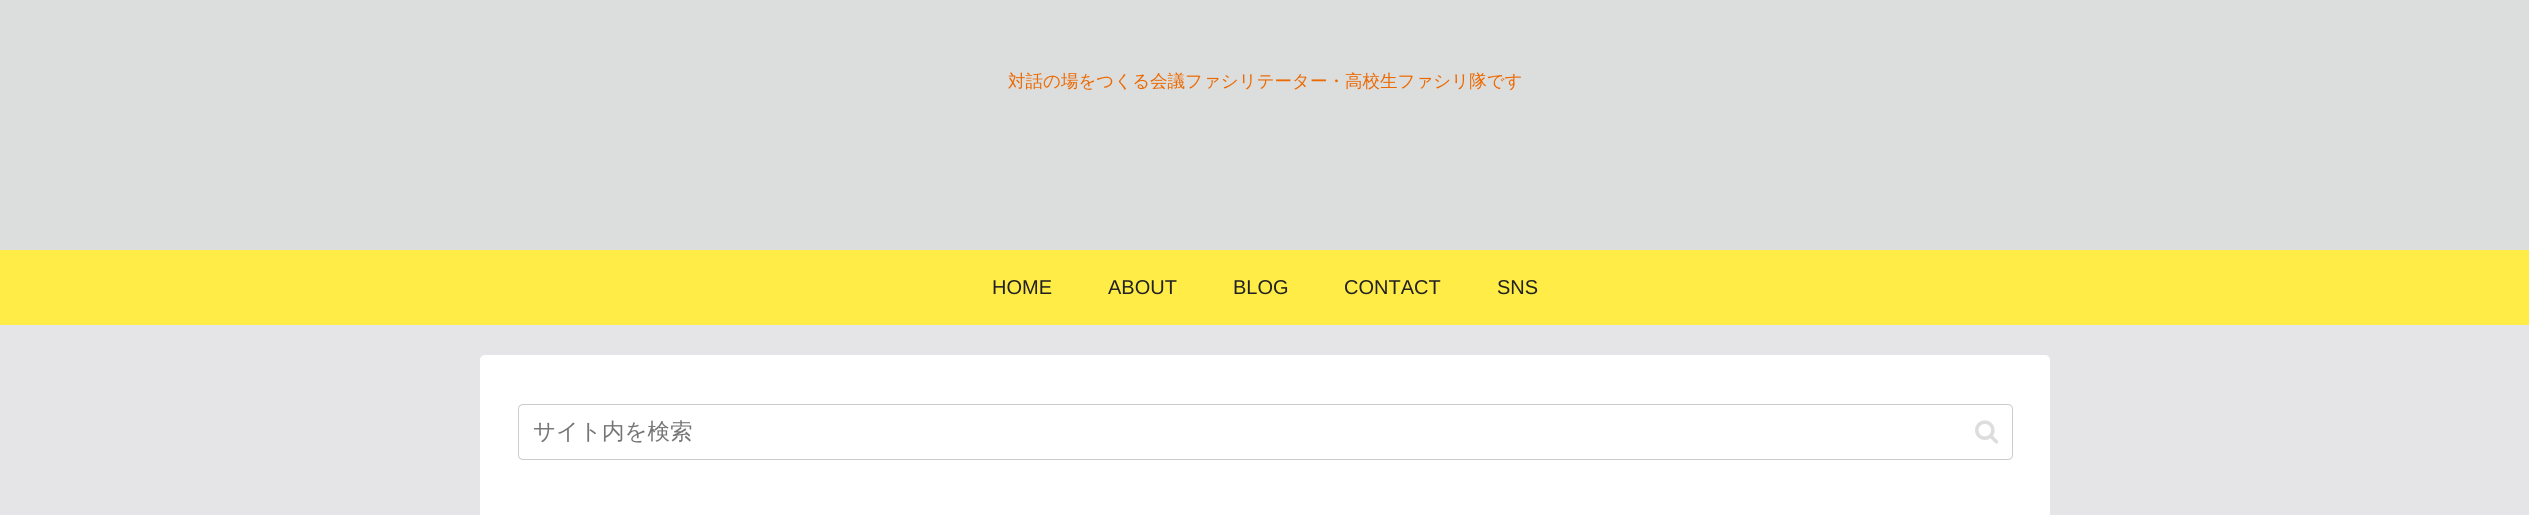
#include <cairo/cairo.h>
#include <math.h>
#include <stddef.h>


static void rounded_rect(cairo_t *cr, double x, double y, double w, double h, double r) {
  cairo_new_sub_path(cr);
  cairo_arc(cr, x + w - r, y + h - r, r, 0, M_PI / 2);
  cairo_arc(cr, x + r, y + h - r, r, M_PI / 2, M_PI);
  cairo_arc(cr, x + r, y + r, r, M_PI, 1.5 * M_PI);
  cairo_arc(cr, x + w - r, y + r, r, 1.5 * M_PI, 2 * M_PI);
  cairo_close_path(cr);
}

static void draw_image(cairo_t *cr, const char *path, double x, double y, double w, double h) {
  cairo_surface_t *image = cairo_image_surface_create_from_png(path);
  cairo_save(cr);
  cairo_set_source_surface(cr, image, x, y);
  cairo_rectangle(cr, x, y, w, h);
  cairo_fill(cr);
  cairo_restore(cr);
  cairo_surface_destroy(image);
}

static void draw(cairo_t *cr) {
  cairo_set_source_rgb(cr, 229 / 255.0, 228 / 255.0, 230 / 255.0);
  cairo_paint(cr);
  cairo_set_source_rgb(cr, 220 / 255.0, 221 / 255.0, 221 / 255.0);
  cairo_rectangle(cr, 0, 0, 2529, 250);
  cairo_fill(cr);
  cairo_set_source_rgb(cr, 1, 236 / 255.0, 71 / 255.0);
  cairo_rectangle(cr, 0, 250, 2529, 75);
  cairo_fill(cr);
  cairo_set_source_rgb(cr, 1, 1, 1);
  rounded_rect(cr, 480, 355, 1570, 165, 5);
  cairo_fill(cr);
  rounded_rect(cr, 518.5, 404.5, 1494, 55, 4.5);
  cairo_set_source_rgb(cr, 204 / 255.0, 204 / 255.0, 204 / 255.0);
  cairo_set_line_width(cr, 1);
  cairo_stroke(cr);
  draw_image(cr, "images/1.png", 1975, 420, 24, 24);
  cairo_select_font_face(cr, "WenQuanYi Zen Hei Medium", CAIRO_FONT_SLANT_NORMAL, CAIRO_FONT_WEIGHT_NORMAL);
  cairo_set_font_size(cr, 17.5);
  cairo_set_source_rgb(cr, 236 / 255.0, 104 / 255.0, 0);
  cairo_move_to(cr, 1008, 87);
  cairo_show_text(cr, "対話の場をつくる会議ファシリテーター・高校生ファシリ隊です");
  cairo_select_font_face(cr, "Liberation Sans", CAIRO_FONT_SLANT_NORMAL, CAIRO_FONT_WEIGHT_NORMAL);
  cairo_set_font_size(cr, 20);
  cairo_set_source_rgb(cr, 33 / 255.0, 33 / 255.0, 33 / 255.0);
  cairo_move_to(cr, 992, 294);
  cairo_show_text(cr, "HOME");
  cairo_move_to(cr, 1108, 294);
  cairo_show_text(cr, "ABOUT");
  cairo_move_to(cr, 1233, 294);
  cairo_show_text(cr, "BLOG");
  cairo_move_to(cr, 1344, 294);
  cairo_show_text(cr, "CONTACT");
  cairo_move_to(cr, 1497, 294);
  cairo_show_text(cr, "SNS");
  cairo_select_font_face(cr, "WenQuanYi Zen Hei Medium", CAIRO_FONT_SLANT_NORMAL, CAIRO_FONT_WEIGHT_NORMAL);
  cairo_set_font_size(cr, 22.5);
  cairo_set_source_rgb(cr, 117 / 255.0, 117 / 255.0, 117 / 255.0);
  cairo_move_to(cr, 533, 439);
  cairo_show_text(cr, "サイト内を検索");
}

int main(void) {
  cairo_surface_t *surface = cairo_image_surface_create(CAIRO_FORMAT_RGB24, 2529, 515);
  cairo_t *cr = cairo_create(surface);
  cairo_font_options_t *options = cairo_font_options_create();
  cairo_font_options_set_hint_metrics(options, CAIRO_HINT_METRICS_OFF);
  cairo_font_options_set_hint_style(options, CAIRO_HINT_STYLE_NONE);
  cairo_set_font_options(cr, options);
  cairo_set_miter_limit(cr, 4);
  draw(cr);
  cairo_surface_write_to_png(surface, "out.png");
  cairo_font_options_destroy(options);
  cairo_destroy(cr);
  cairo_surface_destroy(surface);
  return 0;
}
